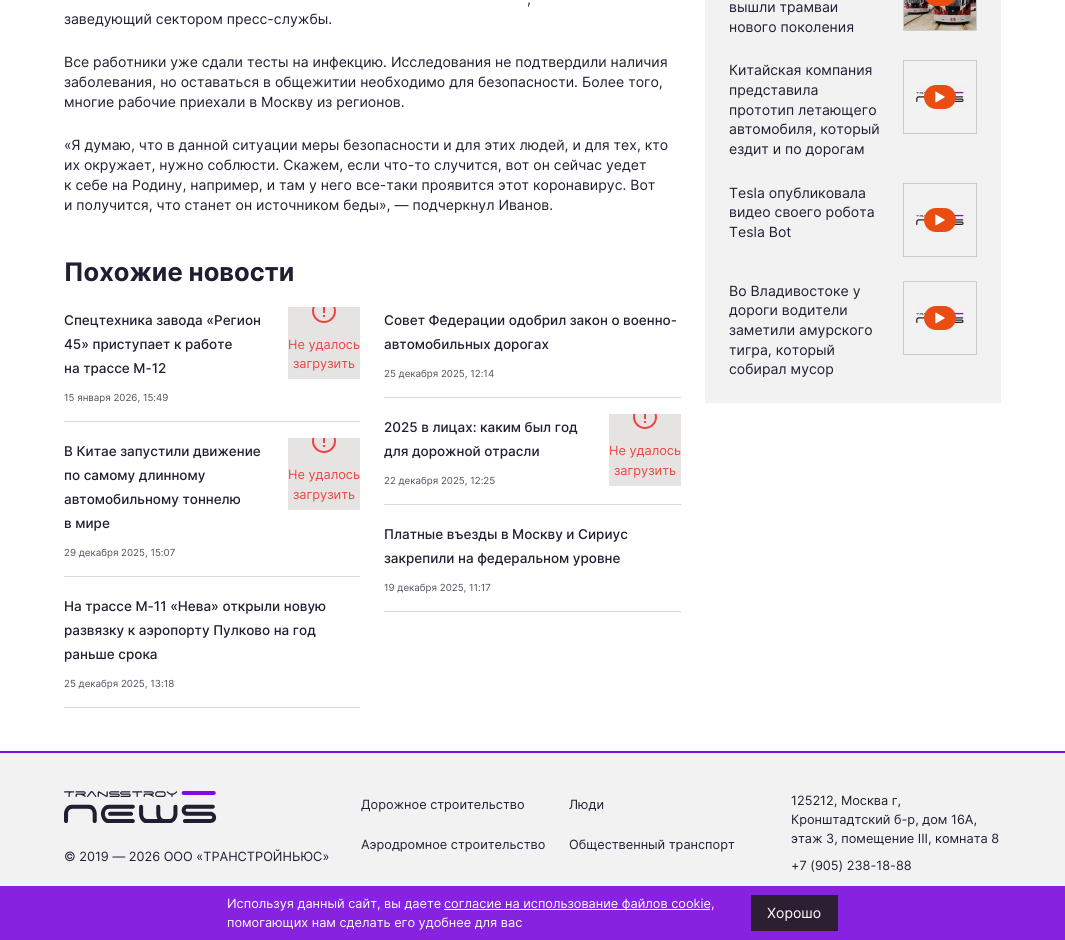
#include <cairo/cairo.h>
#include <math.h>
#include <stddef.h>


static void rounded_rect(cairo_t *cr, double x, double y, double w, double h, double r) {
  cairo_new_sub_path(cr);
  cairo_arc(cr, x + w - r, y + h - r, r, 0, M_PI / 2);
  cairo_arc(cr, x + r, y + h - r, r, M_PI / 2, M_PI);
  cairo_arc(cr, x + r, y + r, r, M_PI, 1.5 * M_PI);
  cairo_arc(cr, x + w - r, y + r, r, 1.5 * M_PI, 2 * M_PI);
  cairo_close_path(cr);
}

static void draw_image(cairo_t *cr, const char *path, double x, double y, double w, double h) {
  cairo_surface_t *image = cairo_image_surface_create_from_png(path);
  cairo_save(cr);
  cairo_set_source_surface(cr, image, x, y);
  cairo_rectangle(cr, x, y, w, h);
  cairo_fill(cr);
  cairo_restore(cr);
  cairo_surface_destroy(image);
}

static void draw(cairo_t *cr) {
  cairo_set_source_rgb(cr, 1, 1, 1);
  cairo_paint(cr);
  cairo_set_source_rgb(cr, 217 / 255.0, 217 / 255.0, 217 / 255.0);
  cairo_rectangle(cr, 64, 421, 296, 1);
  cairo_fill(cr);
  cairo_set_source_rgb(cr, 229 / 255.0, 228 / 255.0, 226 / 255.0);
  cairo_rectangle(cr, 288, 307, 72, 72);
  cairo_fill(cr);
  draw_image(cr, "images/1.png", 312, 307, 24, 16);
  cairo_set_source_rgb(cr, 217 / 255.0, 217 / 255.0, 217 / 255.0);
  cairo_rectangle(cr, 64, 576, 296, 1);
  cairo_fill(cr);
  cairo_set_source_rgb(cr, 229 / 255.0, 228 / 255.0, 226 / 255.0);
  cairo_rectangle(cr, 288, 438, 72, 72);
  cairo_fill(cr);
  draw_image(cr, "images/2.png", 312, 438, 24, 15);
  cairo_set_source_rgb(cr, 217 / 255.0, 217 / 255.0, 217 / 255.0);
  cairo_rectangle(cr, 64, 707, 296, 1);
  cairo_fill(cr);
  cairo_rectangle(cr, 384, 397, 297, 1);
  cairo_fill(cr);
  cairo_rectangle(cr, 384, 504, 297, 1);
  cairo_fill(cr);
  cairo_set_source_rgb(cr, 229 / 255.0, 228 / 255.0, 226 / 255.0);
  cairo_rectangle(cr, 609, 414, 72, 72);
  cairo_fill(cr);
  draw_image(cr, "images/2.png", 633, 414, 24, 15);
  cairo_set_source_rgb(cr, 217 / 255.0, 217 / 255.0, 217 / 255.0);
  cairo_rectangle(cr, 384, 611, 297, 1);
  cairo_fill(cr);
  cairo_set_source_rgb(cr, 242 / 255.0, 242 / 255.0, 242 / 255.0);
  cairo_rectangle(cr, 705, 0, 296, 403);
  cairo_fill(cr);
  cairo_rectangle(cr, 903.5, -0.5, 73, 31);
  cairo_set_source_rgb(cr, 204 / 255.0, 204 / 255.0, 204 / 255.0);
  cairo_set_line_width(cr, 1);
  cairo_stroke(cr);
  draw_image(cr, "images/3.png", 904, 0, 72, 30);
  cairo_set_source_rgb(cr, 233 / 255.0, 77 / 255.0, 17 / 255.0);
  rounded_rect(cr, 924, -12, 32, 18, 12);
  cairo_fill(cr);
  cairo_rectangle(cr, 903.5, 60.5, 73, 73);
  cairo_set_source_rgb(cr, 204 / 255.0, 204 / 255.0, 204 / 255.0);
  cairo_stroke(cr);
  draw_image(cr, "images/4.png", 916, 85, 52, 24);
  cairo_set_source_rgb(cr, 233 / 255.0, 77 / 255.0, 17 / 255.0);
  rounded_rect(cr, 924, 85, 32, 24, 12);
  cairo_fill(cr);
  draw_image(cr, "images/5.png", 935, 91, 10, 12);
  cairo_rectangle(cr, 903.5, 183.5, 73, 73);
  cairo_set_source_rgb(cr, 204 / 255.0, 204 / 255.0, 204 / 255.0);
  cairo_stroke(cr);
  draw_image(cr, "images/4.png", 916, 208, 52, 24);
  cairo_set_source_rgb(cr, 233 / 255.0, 77 / 255.0, 17 / 255.0);
  rounded_rect(cr, 924, 208, 32, 24, 12);
  cairo_fill(cr);
  draw_image(cr, "images/5.png", 935, 214, 10, 12);
  cairo_rectangle(cr, 903.5, 281.5, 73, 73);
  cairo_set_source_rgb(cr, 204 / 255.0, 204 / 255.0, 204 / 255.0);
  cairo_stroke(cr);
  draw_image(cr, "images/4.png", 916, 306, 52, 24);
  cairo_set_source_rgb(cr, 233 / 255.0, 77 / 255.0, 17 / 255.0);
  rounded_rect(cr, 924, 306, 32, 24, 12);
  cairo_fill(cr);
  draw_image(cr, "images/5.png", 935, 312, 10, 12);
  cairo_set_source_rgb(cr, 242 / 255.0, 242 / 255.0, 242 / 255.0);
  cairo_rectangle(cr, 0, 753, 1065, 187);
  cairo_fill(cr);
  cairo_set_source_rgb(cr, 125 / 255.0, 12 / 255.0, 223 / 255.0);
  cairo_rectangle(cr, 0, 751, 1065, 2);
  cairo_fill(cr);
  draw_image(cr, "images/6.png", 64, 791, 153, 32);
  cairo_set_source_rgba(cr, 125 / 255.0, 12 / 255.0, 223 / 255.0, 0.9);
  cairo_rectangle(cr, 0, 886, 1065, 54);
  cairo_fill(cr);
  cairo_set_source_rgb(cr, 254 / 255.0, 254 / 255.0, 254 / 255.0);
  cairo_rectangle(cr, 444, 909, 266, 1);
  cairo_fill(cr);
  cairo_set_source_rgba(cr, 35 / 255.0, 31 / 255.0, 32 / 255.0, 0.9);
  cairo_rectangle(cr, 751, 895, 87, 36);
  cairo_fill(cr);
  cairo_select_font_face(cr, "Inter", CAIRO_FONT_SLANT_NORMAL, CAIRO_FONT_WEIGHT_NORMAL);
  cairo_set_font_size(cr, 14.05);
  cairo_set_source_rgb(cr, 34 / 255.0, 30 / 255.0, 49 / 255.0);
  cairo_move_to(cr, 527, 4);
  cairo_show_text(cr, ",");
  cairo_move_to(cr, 64, 24);
  cairo_show_text(cr, "заведующий сектором пресс-службы.");
  cairo_move_to(cr, 64, 67);
  cairo_show_text(cr, "Все работники уже сдали тесты на инфекцию. Исследования не подтвердили наличия");
  cairo_move_to(cr, 64, 87);
  cairo_show_text(cr, "заболевания, но оставаться в общежитии необходимо для безопасности. Более того,");
  cairo_move_to(cr, 64, 107);
  cairo_show_text(cr, "многие рабочие приехали в Москву из регионов.");
  cairo_move_to(cr, 64, 150);
  cairo_show_text(cr, "«Я думаю, что в данной ситуации меры безопасности и для этих людей, и для тех, кто");
  cairo_move_to(cr, 64, 170);
  cairo_show_text(cr, "их окружает, нужно соблюсти. Скажем, если что-то случится, вот он сейчас уедет");
  cairo_move_to(cr, 64, 190);
  cairo_show_text(cr, "к себе на Родину, например, и там у него все-таки проявится этот коронавирус. Вот");
  cairo_move_to(cr, 64, 210);
  cairo_show_text(cr, "и получится, что станет он источником беды», — подчеркнул Иванов.");
  cairo_select_font_face(cr, "Inter", CAIRO_FONT_SLANT_NORMAL, CAIRO_FONT_WEIGHT_BOLD);
  cairo_set_font_size(cr, 25.5);
  cairo_move_to(cr, 64, 281);
  cairo_show_text(cr, "Похожие новости");
  cairo_select_font_face(cr, "Inter Medium", CAIRO_FONT_SLANT_NORMAL, CAIRO_FONT_WEIGHT_NORMAL);
  cairo_set_font_size(cr, 13.5);
  cairo_move_to(cr, 64, 325);
  cairo_show_text(cr, "Спецтехника завода «Регион");
  cairo_move_to(cr, 64, 349);
  cairo_show_text(cr, "45» приступает к работе");
  cairo_move_to(cr, 64, 373);
  cairo_show_text(cr, "на трассе М-12");
  cairo_select_font_face(cr, "Inter", CAIRO_FONT_SLANT_NORMAL, CAIRO_FONT_WEIGHT_NORMAL);
  cairo_set_font_size(cr, 9.75);
  cairo_set_source_rgb(cr, 82 / 255.0, 80 / 255.0, 93 / 255.0);
  cairo_move_to(cr, 64, 401);
  cairo_show_text(cr, "15 января 2026, 15:49");
  cairo_set_font_size(cr, 12.75);
  cairo_set_source_rgb(cr, 239 / 255.0, 68 / 255.0, 68 / 255.0);
  cairo_move_to(cr, 288, 349);
  cairo_show_text(cr, "Не удалось");
  cairo_move_to(cr, 293, 368);
  cairo_show_text(cr, "загрузить");
  cairo_select_font_face(cr, "Inter Medium", CAIRO_FONT_SLANT_NORMAL, CAIRO_FONT_WEIGHT_NORMAL);
  cairo_set_font_size(cr, 13.5);
  cairo_set_source_rgb(cr, 34 / 255.0, 30 / 255.0, 49 / 255.0);
  cairo_move_to(cr, 64, 456);
  cairo_show_text(cr, "В Китае запустили движение");
  cairo_move_to(cr, 64, 480);
  cairo_show_text(cr, "по самому длинному");
  cairo_move_to(cr, 64, 504);
  cairo_show_text(cr, "автомобильному тоннелю");
  cairo_move_to(cr, 64, 528);
  cairo_show_text(cr, "в мире");
  cairo_select_font_face(cr, "Inter", CAIRO_FONT_SLANT_NORMAL, CAIRO_FONT_WEIGHT_NORMAL);
  cairo_set_font_size(cr, 9.75);
  cairo_set_source_rgb(cr, 82 / 255.0, 80 / 255.0, 93 / 255.0);
  cairo_move_to(cr, 64, 556);
  cairo_show_text(cr, "29 декабря 2025, 15:07");
  cairo_set_font_size(cr, 12.75);
  cairo_set_source_rgb(cr, 239 / 255.0, 68 / 255.0, 68 / 255.0);
  cairo_move_to(cr, 288, 479);
  cairo_show_text(cr, "Не удалось");
  cairo_move_to(cr, 293, 499);
  cairo_show_text(cr, "загрузить");
  cairo_select_font_face(cr, "Inter Medium", CAIRO_FONT_SLANT_NORMAL, CAIRO_FONT_WEIGHT_NORMAL);
  cairo_set_font_size(cr, 13.5);
  cairo_set_source_rgb(cr, 34 / 255.0, 30 / 255.0, 49 / 255.0);
  cairo_move_to(cr, 64, 611);
  cairo_show_text(cr, "На трассе М-11 «Нева» открыли новую");
  cairo_move_to(cr, 64, 635);
  cairo_show_text(cr, "развязку к аэропорту Пулково на год");
  cairo_move_to(cr, 64, 659);
  cairo_show_text(cr, "раньше срока");
  cairo_select_font_face(cr, "Inter", CAIRO_FONT_SLANT_NORMAL, CAIRO_FONT_WEIGHT_NORMAL);
  cairo_set_font_size(cr, 9.75);
  cairo_set_source_rgb(cr, 82 / 255.0, 80 / 255.0, 93 / 255.0);
  cairo_move_to(cr, 64, 687);
  cairo_show_text(cr, "25 декабря 2025, 13:18");
  cairo_select_font_face(cr, "Inter Medium", CAIRO_FONT_SLANT_NORMAL, CAIRO_FONT_WEIGHT_NORMAL);
  cairo_set_font_size(cr, 13.5);
  cairo_set_source_rgb(cr, 34 / 255.0, 30 / 255.0, 49 / 255.0);
  cairo_move_to(cr, 384, 325);
  cairo_show_text(cr, "Совет Федерации одобрил закон о военно-");
  cairo_move_to(cr, 384, 349);
  cairo_show_text(cr, "автомобильных дорогах");
  cairo_select_font_face(cr, "Inter", CAIRO_FONT_SLANT_NORMAL, CAIRO_FONT_WEIGHT_NORMAL);
  cairo_set_font_size(cr, 9.75);
  cairo_set_source_rgb(cr, 82 / 255.0, 80 / 255.0, 93 / 255.0);
  cairo_move_to(cr, 384, 377);
  cairo_show_text(cr, "25 декабря 2025, 12:14");
  cairo_select_font_face(cr, "Inter Medium", CAIRO_FONT_SLANT_NORMAL, CAIRO_FONT_WEIGHT_NORMAL);
  cairo_set_font_size(cr, 13.5);
  cairo_set_source_rgb(cr, 34 / 255.0, 30 / 255.0, 49 / 255.0);
  cairo_move_to(cr, 384, 432);
  cairo_show_text(cr, "2025 в лицах: каким был год");
  cairo_move_to(cr, 384, 456);
  cairo_show_text(cr, "для дорожной отрасли");
  cairo_select_font_face(cr, "Inter", CAIRO_FONT_SLANT_NORMAL, CAIRO_FONT_WEIGHT_NORMAL);
  cairo_set_font_size(cr, 9.75);
  cairo_set_source_rgb(cr, 82 / 255.0, 80 / 255.0, 93 / 255.0);
  cairo_move_to(cr, 384, 484);
  cairo_show_text(cr, "22 декабря 2025, 12:25");
  cairo_set_font_size(cr, 12.75);
  cairo_set_source_rgb(cr, 239 / 255.0, 68 / 255.0, 68 / 255.0);
  cairo_move_to(cr, 609, 455);
  cairo_show_text(cr, "Не удалось");
  cairo_move_to(cr, 614, 475);
  cairo_show_text(cr, "загрузить");
  cairo_select_font_face(cr, "Inter Medium", CAIRO_FONT_SLANT_NORMAL, CAIRO_FONT_WEIGHT_NORMAL);
  cairo_set_font_size(cr, 13.5);
  cairo_set_source_rgb(cr, 34 / 255.0, 30 / 255.0, 49 / 255.0);
  cairo_move_to(cr, 384, 539);
  cairo_show_text(cr, "Платные въезды в Москву и Сириус");
  cairo_move_to(cr, 384, 563);
  cairo_show_text(cr, "закрепили на федеральном уровне");
  cairo_select_font_face(cr, "Inter", CAIRO_FONT_SLANT_NORMAL, CAIRO_FONT_WEIGHT_NORMAL);
  cairo_set_font_size(cr, 9.75);
  cairo_set_source_rgb(cr, 82 / 255.0, 80 / 255.0, 93 / 255.0);
  cairo_move_to(cr, 384, 591);
  cairo_show_text(cr, "19 декабря 2025, 11:17");
  cairo_set_font_size(cr, 14.05);
  cairo_set_source_rgb(cr, 34 / 255.0, 30 / 255.0, 49 / 255.0);
  cairo_move_to(cr, 729, 12);
  cairo_show_text(cr, "вышли трамваи");
  cairo_move_to(cr, 729, 32);
  cairo_show_text(cr, "нового поколения");
  cairo_move_to(cr, 729, 75);
  cairo_show_text(cr, "Китайская компания");
  cairo_move_to(cr, 729, 95);
  cairo_show_text(cr, "представила");
  cairo_move_to(cr, 729, 115);
  cairo_show_text(cr, "прототип летающего");
  cairo_move_to(cr, 729, 134);
  cairo_show_text(cr, "автомобиля, который");
  cairo_move_to(cr, 729, 154);
  cairo_show_text(cr, "ездит и по дорогам");
  cairo_move_to(cr, 729, 198);
  cairo_show_text(cr, "Tesla опубликовала");
  cairo_move_to(cr, 729, 217);
  cairo_show_text(cr, "видео своего робота");
  cairo_move_to(cr, 729, 237);
  cairo_show_text(cr, "Tesla Bot");
  cairo_move_to(cr, 729, 296);
  cairo_show_text(cr, "Во Владивостоке у");
  cairo_move_to(cr, 729, 315);
  cairo_show_text(cr, "дороги водители");
  cairo_move_to(cr, 729, 335);
  cairo_show_text(cr, "заметили амурского");
  cairo_move_to(cr, 729, 355);
  cairo_show_text(cr, "тигра, который");
  cairo_move_to(cr, 729, 374);
  cairo_show_text(cr, "собирал мусор");
  cairo_set_font_size(cr, 12.75);
  cairo_move_to(cr, 361, 809);
  cairo_show_text(cr, "Дорожное строительство");
  cairo_move_to(cr, 569, 809);
  cairo_show_text(cr, "Люди");
  cairo_move_to(cr, 361, 849);
  cairo_show_text(cr, "Аэродромное строительство");
  cairo_move_to(cr, 569, 849);
  cairo_show_text(cr, "Общественный транспорт");
  cairo_move_to(cr, 791, 805);
  cairo_show_text(cr, "125212, Москва г,");
  cairo_move_to(cr, 791, 824);
  cairo_show_text(cr, "Кронштадтский б-р, дом 16А,");
  cairo_move_to(cr, 791, 843);
  cairo_show_text(cr, "этаж 3, помещение III, комната 8");
  cairo_move_to(cr, 791, 870);
  cairo_show_text(cr, "+7 (905) 238-18-88");
  cairo_move_to(cr, 64, 861);
  cairo_show_text(cr, "© 2019 — 2026 ООО «ТРАНСТРОЙНЬЮС»");
  cairo_set_source_rgb(cr, 254 / 255.0, 254 / 255.0, 254 / 255.0);
  cairo_move_to(cr, 227, 908);
  cairo_show_text(cr, "Используя данный сайт, вы даете");
  cairo_move_to(cr, 444, 908);
  cairo_show_text(cr, "согласие на использование файлов cookie,");
  cairo_move_to(cr, 227, 927);
  cairo_show_text(cr, "помогающих нам сделать его удобнее для вас");
  cairo_set_font_size(cr, 14.05);
  cairo_move_to(cr, 767, 918);
  cairo_show_text(cr, "Хорошо");
}

int main(void) {
  cairo_surface_t *surface = cairo_image_surface_create(CAIRO_FORMAT_RGB24, 1065, 940);
  cairo_t *cr = cairo_create(surface);
  cairo_font_options_t *options = cairo_font_options_create();
  cairo_font_options_set_hint_metrics(options, CAIRO_HINT_METRICS_OFF);
  cairo_font_options_set_hint_style(options, CAIRO_HINT_STYLE_NONE);
  cairo_set_font_options(cr, options);
  cairo_set_miter_limit(cr, 4);
  draw(cr);
  cairo_surface_write_to_png(surface, "out.png");
  cairo_font_options_destroy(options);
  cairo_destroy(cr);
  cairo_surface_destroy(surface);
  return 0;
}
